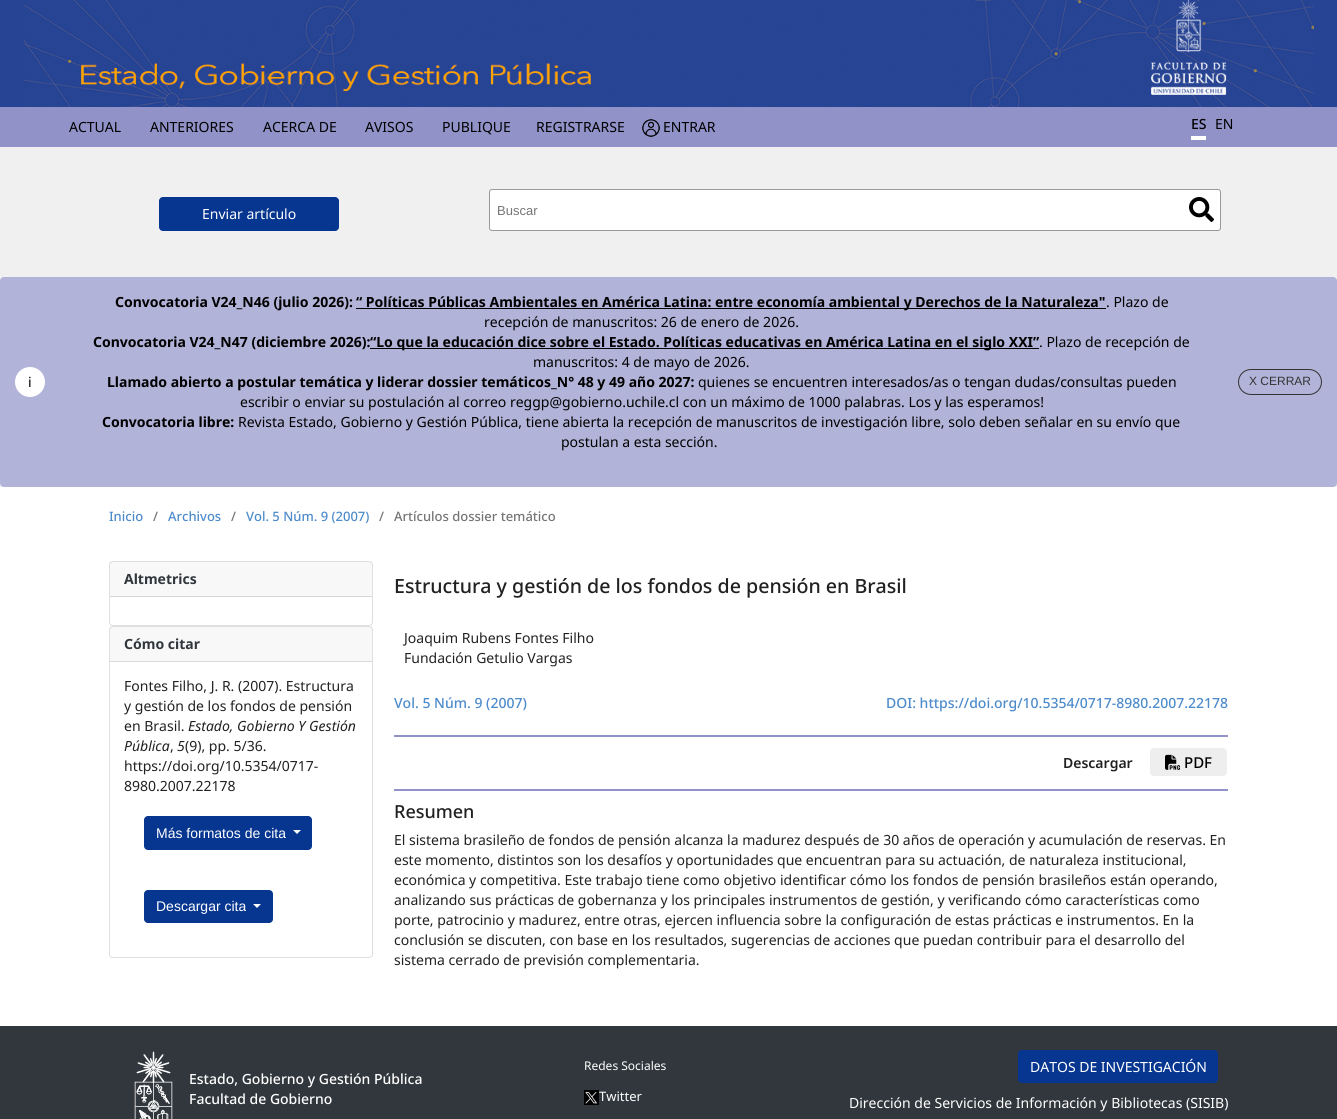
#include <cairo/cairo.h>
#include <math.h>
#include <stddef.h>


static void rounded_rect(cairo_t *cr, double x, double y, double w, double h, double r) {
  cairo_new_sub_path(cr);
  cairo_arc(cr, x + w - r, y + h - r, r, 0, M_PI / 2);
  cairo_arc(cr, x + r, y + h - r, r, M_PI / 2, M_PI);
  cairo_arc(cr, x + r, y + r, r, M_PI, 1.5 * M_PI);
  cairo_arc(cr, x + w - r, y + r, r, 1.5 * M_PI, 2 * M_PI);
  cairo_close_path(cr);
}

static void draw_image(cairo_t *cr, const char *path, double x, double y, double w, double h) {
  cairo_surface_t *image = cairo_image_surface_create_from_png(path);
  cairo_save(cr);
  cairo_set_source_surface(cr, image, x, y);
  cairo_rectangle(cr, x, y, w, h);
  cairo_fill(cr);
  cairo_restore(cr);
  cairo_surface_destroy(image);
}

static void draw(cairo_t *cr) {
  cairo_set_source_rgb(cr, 1, 1, 1);
  cairo_paint(cr);
  cairo_set_source_rgb(cr, 39 / 255.0, 68 / 255.0, 148 / 255.0);
  cairo_rectangle(cr, 0, 0, 1337, 107);
  cairo_fill(cr);
  draw_image(cr, "images/1.png", 24, 0, 1290, 107);
  cairo_set_source_rgb(cr, 240 / 255.0, 240 / 255.0, 240 / 255.0);
  cairo_rectangle(cr, 0, 147, 1337, 340);
  cairo_fill(cr);
  cairo_set_source_rgb(cr, 144 / 255.0, 146 / 255.0, 200 / 255.0);
  cairo_rectangle(cr, 0, 107, 1337, 40);
  cairo_fill(cr);
  draw_image(cr, "images/2.png", 642, 119, 18, 18);
  cairo_set_source_rgb(cr, 1, 1, 1);
  cairo_rectangle(cr, 1191, 136, 15, 4);
  cairo_fill(cr);
  cairo_set_source_rgb(cr, 7 / 255.0, 54 / 255.0, 144 / 255.0);
  rounded_rect(cr, 159.5, 197.5, 179, 33, 3.5);
  cairo_fill_preserve(cr);
  cairo_set_line_width(cr, 1);
  cairo_stroke(cr);
  cairo_set_source_rgb(cr, 1, 1, 1);
  rounded_rect(cr, 489, 189, 732, 42, 3);
  cairo_fill(cr);
  rounded_rect(cr, 489.5, 189.5, 731, 41, 2.5);
  cairo_set_source_rgba(cr, 0, 0, 0, 0.4);
  cairo_stroke(cr);
  draw_image(cr, "images/3.png", 1189, 197, 25, 25);
  cairo_set_source_rgb(cr, 178 / 255.0, 179 / 255.0, 217 / 255.0);
  rounded_rect(cr, 0.5, 277.5, 1336, 209, 3.5);
  cairo_fill_preserve(cr);
  cairo_stroke(cr);
  cairo_set_source_rgb(cr, 1, 1, 1);
  cairo_arc(cr, 30, 382, 15, 0, 2 * M_PI);
  cairo_fill(cr);
  cairo_set_source_rgb(cr, 0, 0, 0);
  cairo_rectangle(cr, 356, 308, 750, 1);
  cairo_fill(cr);
  cairo_rectangle(cr, 370, 348, 669, 1);
  cairo_fill(cr);
  rounded_rect(cr, 1238.5, 369.5, 83, 25, 12.5);
  cairo_set_source_rgb(cr, 51 / 255.0, 51 / 255.0, 51 / 255.0);
  cairo_stroke(cr);
  rounded_rect(cr, 109.5, 561.5, 263, 64, 3.5);
  cairo_set_source_rgb(cr, 223 / 255.0, 223 / 255.0, 223 / 255.0);
  cairo_stroke(cr);
  cairo_set_source_rgba(cr, 0, 0, 0, 0.03);
  cairo_rectangle(cr, 110, 562, 262, 34);
  cairo_fill(cr);
  cairo_set_source_rgb(cr, 216 / 255.0, 216 / 255.0, 216 / 255.0);
  cairo_rectangle(cr, 110, 596, 262, 1);
  cairo_fill(cr);
  rounded_rect(cr, 109.5, 626.5, 263, 331, 3.5);
  cairo_set_source_rgb(cr, 223 / 255.0, 223 / 255.0, 223 / 255.0);
  cairo_stroke(cr);
  cairo_set_source_rgba(cr, 0, 0, 0, 0.03);
  cairo_rectangle(cr, 110, 627, 262, 34);
  cairo_fill(cr);
  cairo_set_source_rgb(cr, 216 / 255.0, 216 / 255.0, 216 / 255.0);
  cairo_rectangle(cr, 110, 661, 262, 1);
  cairo_fill(cr);
  cairo_set_source_rgb(cr, 7 / 255.0, 54 / 255.0, 144 / 255.0);
  rounded_rect(cr, 144.5, 816.5, 167, 33, 3.5);
  cairo_fill_preserve(cr);
  cairo_stroke(cr);
  cairo_set_source_rgb(cr, 1, 1, 1);
  cairo_new_path(cr);
  cairo_move_to(cr, 293, 830);
  cairo_line_to(cr, 301, 830);
  cairo_line_to(cr, 297, 834);
  cairo_close_path(cr);
  cairo_fill(cr);
  cairo_set_source_rgb(cr, 7 / 255.0, 54 / 255.0, 144 / 255.0);
  rounded_rect(cr, 144.5, 890.5, 128, 32, 3.5);
  cairo_fill_preserve(cr);
  cairo_stroke(cr);
  cairo_set_source_rgb(cr, 1, 1, 1);
  cairo_new_path(cr);
  cairo_move_to(cr, 253, 904);
  cairo_line_to(cr, 261, 904);
  cairo_line_to(cr, 257, 908);
  cairo_close_path(cr);
  cairo_fill(cr);
  cairo_set_source_rgb(cr, 144 / 255.0, 146 / 255.0, 200 / 255.0);
  cairo_rectangle(cr, 394, 735, 834, 2);
  cairo_fill(cr);
  cairo_set_source_rgb(cr, 238 / 255.0, 238 / 255.0, 238 / 255.0);
  rounded_rect(cr, 1149.5, 747.5, 78, 29, 4.5);
  cairo_fill_preserve(cr);
  cairo_set_source_rgb(cr, 1, 1, 1);
  cairo_stroke(cr);
  draw_image(cr, "images/4.png", 1165, 754, 15, 16);
  cairo_set_source_rgb(cr, 144 / 255.0, 146 / 255.0, 200 / 255.0);
  cairo_rectangle(cr, 394, 789, 834, 2);
  cairo_fill(cr);
  cairo_set_source_rgb(cr, 50 / 255.0, 55 / 255.0, 61 / 255.0);
  cairo_rectangle(cr, 0, 1026, 1337, 93);
  cairo_fill(cr);
  draw_image(cr, "images/5.png", 134, 1051, 39, 68);
  draw_image(cr, "images/6.png", 584, 1090, 15, 15);
  cairo_set_source_rgb(cr, 7 / 255.0, 54 / 255.0, 144 / 255.0);
  rounded_rect(cr, 1018.5, 1050.5, 199, 32, 3.5);
  cairo_fill_preserve(cr);
  cairo_stroke(cr);
  cairo_select_font_face(cr, "Noto Sans", CAIRO_FONT_SLANT_NORMAL, CAIRO_FONT_WEIGHT_NORMAL);
  cairo_set_font_size(cr, 14);
  cairo_set_source_rgb(cr, 0, 0, 0);
  cairo_move_to(cr, 69, 132);
  cairo_show_text(cr, "ACTUAL");
  cairo_move_to(cr, 150, 132);
  cairo_show_text(cr, "ANTERIORES");
  cairo_move_to(cr, 263, 132);
  cairo_show_text(cr, "ACERCA DE");
  cairo_move_to(cr, 365, 132);
  cairo_show_text(cr, "AVISOS");
  cairo_move_to(cr, 442, 132);
  cairo_show_text(cr, "PUBLIQUE");
  cairo_move_to(cr, 536, 132);
  cairo_show_text(cr, "REGISTRARSE");
  cairo_move_to(cr, 663, 132);
  cairo_show_text(cr, "ENTRAR");
  cairo_select_font_face(cr, "Noto Sans Medium", CAIRO_FONT_SLANT_NORMAL, CAIRO_FONT_WEIGHT_NORMAL);
  cairo_move_to(cr, 1191, 129);
  cairo_show_text(cr, "ES");
  cairo_select_font_face(cr, "Noto Sans", CAIRO_FONT_SLANT_NORMAL, CAIRO_FONT_WEIGHT_NORMAL);
  cairo_move_to(cr, 1215, 129);
  cairo_show_text(cr, "EN");
  cairo_set_source_rgb(cr, 1, 1, 1);
  cairo_move_to(cr, 202, 219);
  cairo_show_text(cr, "Enviar artículo");
  cairo_select_font_face(cr, "Liberation Sans", CAIRO_FONT_SLANT_NORMAL, CAIRO_FONT_WEIGHT_NORMAL);
  cairo_set_font_size(cr, 13);
  cairo_set_source_rgb(cr, 117 / 255.0, 117 / 255.0, 117 / 255.0);
  cairo_move_to(cr, 497, 215);
  cairo_show_text(cr, "Buscar");
  cairo_select_font_face(cr, "Noto Sans", CAIRO_FONT_SLANT_NORMAL, CAIRO_FONT_WEIGHT_NORMAL);
  cairo_set_font_size(cr, 14);
  cairo_set_source_rgb(cr, 0, 0, 0);
  cairo_move_to(cr, 28, 387);
  cairo_show_text(cr, "i");
  cairo_select_font_face(cr, "Noto Sans", CAIRO_FONT_SLANT_NORMAL, CAIRO_FONT_WEIGHT_BOLD);
  cairo_move_to(cr, 115, 307);
  cairo_show_text(cr, "Convocatoria V24_N46 (julio 2026):");
  cairo_move_to(cr, 356, 307);
  cairo_show_text(cr, "“ Políticas Públicas Ambientales en América Latina: entre economía ambiental y Derechos de la Naturaleza\"");
  cairo_select_font_face(cr, "Noto Sans", CAIRO_FONT_SLANT_NORMAL, CAIRO_FONT_WEIGHT_NORMAL);
  cairo_move_to(cr, 1106, 307);
  cairo_show_text(cr, ". Plazo de");
  cairo_move_to(cr, 484, 327);
  cairo_show_text(cr, "recepción de manuscritos: 26 de enero de 2026.");
  cairo_select_font_face(cr, "Noto Sans", CAIRO_FONT_SLANT_NORMAL, CAIRO_FONT_WEIGHT_BOLD);
  cairo_move_to(cr, 93, 347);
  cairo_show_text(cr, "Convocatoria V24_N47 (diciembre 2026):");
  cairo_move_to(cr, 370, 347);
  cairo_show_text(cr, "“Lo que la educación dice sobre el Estado. Políticas educativas en América Latina en el siglo XXI”");
  cairo_select_font_face(cr, "Noto Sans", CAIRO_FONT_SLANT_NORMAL, CAIRO_FONT_WEIGHT_NORMAL);
  cairo_move_to(cr, 1039, 347);
  cairo_show_text(cr, ". Plazo de recepción de");
  cairo_move_to(cr, 533, 367);
  cairo_show_text(cr, "manuscritos: 4 de mayo de 2026.");
  cairo_select_font_face(cr, "Noto Sans", CAIRO_FONT_SLANT_NORMAL, CAIRO_FONT_WEIGHT_BOLD);
  cairo_move_to(cr, 107, 387);
  cairo_show_text(cr, "Llamado abierto a postular temática y liderar dossier temáticos_N° 48 y 49 año 2027:");
  cairo_select_font_face(cr, "Noto Sans", CAIRO_FONT_SLANT_NORMAL, CAIRO_FONT_WEIGHT_NORMAL);
  cairo_move_to(cr, 698, 387);
  cairo_show_text(cr, "quienes se encuentren interesados/as o tengan dudas/consultas pueden");
  cairo_move_to(cr, 240, 407);
  cairo_show_text(cr, "escribir o enviar su postulación al correo reggp@gobierno.uchile.cl con un máximo de 1000 palabras. Los y las esperamos!");
  cairo_select_font_face(cr, "Noto Sans", CAIRO_FONT_SLANT_NORMAL, CAIRO_FONT_WEIGHT_BOLD);
  cairo_move_to(cr, 102, 427);
  cairo_show_text(cr, "Convocatoria libre:");
  cairo_select_font_face(cr, "Noto Sans", CAIRO_FONT_SLANT_NORMAL, CAIRO_FONT_WEIGHT_NORMAL);
  cairo_move_to(cr, 238, 427);
  cairo_show_text(cr, "Revista Estado, Gobierno y Gestión Pública, tiene abierta la recepción de manuscritos de investigación libre, solo deben señalar en su envío que");
  cairo_move_to(cr, 561, 447);
  cairo_show_text(cr, "postulan a esta sección.");
  cairo_select_font_face(cr, "Liberation Sans", CAIRO_FONT_SLANT_NORMAL, CAIRO_FONT_WEIGHT_NORMAL);
  cairo_set_font_size(cr, 12);
  cairo_set_source_rgb(cr, 51 / 255.0, 51 / 255.0, 51 / 255.0);
  cairo_move_to(cr, 1249, 385);
  cairo_show_text(cr, "X CERRAR");
  cairo_select_font_face(cr, "Noto Sans Medium", CAIRO_FONT_SLANT_NORMAL, CAIRO_FONT_WEIGHT_NORMAL);
  cairo_set_font_size(cr, 13);
  cairo_set_source_rgb(cr, 77 / 255.0, 139 / 255.0, 203 / 255.0);
  cairo_move_to(cr, 109, 521);
  cairo_show_text(cr, "Inicio");
  cairo_set_source_rgb(cr, 117 / 255.0, 117 / 255.0, 117 / 255.0);
  cairo_move_to(cr, 153, 521);
  cairo_show_text(cr, "/");
  cairo_set_source_rgb(cr, 77 / 255.0, 139 / 255.0, 203 / 255.0);
  cairo_move_to(cr, 168, 521);
  cairo_show_text(cr, "Archivos");
  cairo_set_source_rgb(cr, 117 / 255.0, 117 / 255.0, 117 / 255.0);
  cairo_move_to(cr, 231, 521);
  cairo_show_text(cr, "/");
  cairo_set_source_rgb(cr, 77 / 255.0, 139 / 255.0, 203 / 255.0);
  cairo_move_to(cr, 246, 521);
  cairo_show_text(cr, "Vol. 5 Núm. 9 (2007)");
  cairo_set_source_rgb(cr, 117 / 255.0, 117 / 255.0, 117 / 255.0);
  cairo_move_to(cr, 379, 521);
  cairo_show_text(cr, "/");
  cairo_move_to(cr, 394, 521);
  cairo_show_text(cr, "Artículos dossier temático");
  cairo_select_font_face(cr, "Noto Sans", CAIRO_FONT_SLANT_NORMAL, CAIRO_FONT_WEIGHT_BOLD);
  cairo_set_font_size(cr, 14);
  cairo_set_source_rgb(cr, 50 / 255.0, 55 / 255.0, 61 / 255.0);
  cairo_move_to(cr, 124, 584);
  cairo_show_text(cr, "Altmetrics");
  cairo_move_to(cr, 124, 649);
  cairo_show_text(cr, "Cómo citar");
  cairo_select_font_face(cr, "Noto Sans", CAIRO_FONT_SLANT_NORMAL, CAIRO_FONT_WEIGHT_NORMAL);
  cairo_set_source_rgb(cr, 33 / 255.0, 33 / 255.0, 33 / 255.0);
  cairo_move_to(cr, 124, 691);
  cairo_show_text(cr, "Fontes Filho, J. R. (2007). Estructura");
  cairo_move_to(cr, 124, 711);
  cairo_show_text(cr, "y gestión de los fondos de pensión");
  cairo_move_to(cr, 124, 731);
  cairo_show_text(cr, "en Brasil.");
  cairo_select_font_face(cr, "Noto Sans", CAIRO_FONT_SLANT_ITALIC, CAIRO_FONT_WEIGHT_NORMAL);
  cairo_move_to(cr, 188, 731);
  cairo_show_text(cr, "Estado, Gobierno Y Gestión");
  cairo_move_to(cr, 124, 751);
  cairo_show_text(cr, "Pública");
  cairo_select_font_face(cr, "Noto Sans", CAIRO_FONT_SLANT_NORMAL, CAIRO_FONT_WEIGHT_NORMAL);
  cairo_move_to(cr, 170, 751);
  cairo_show_text(cr, ",");
  cairo_select_font_face(cr, "Noto Sans", CAIRO_FONT_SLANT_ITALIC, CAIRO_FONT_WEIGHT_NORMAL);
  cairo_move_to(cr, 177, 751);
  cairo_show_text(cr, "5");
  cairo_select_font_face(cr, "Noto Sans", CAIRO_FONT_SLANT_NORMAL, CAIRO_FONT_WEIGHT_NORMAL);
  cairo_move_to(cr, 185, 751);
  cairo_show_text(cr, "(9), pp. 5/36.");
  cairo_move_to(cr, 124, 771);
  cairo_show_text(cr, "https://doi.org/10.5354/0717-");
  cairo_move_to(cr, 124, 791);
  cairo_show_text(cr, "8980.2007.22178");
  cairo_select_font_face(cr, "Liberation Sans", CAIRO_FONT_SLANT_NORMAL, CAIRO_FONT_WEIGHT_NORMAL);
  cairo_set_source_rgb(cr, 1, 1, 1);
  cairo_move_to(cr, 156, 838);
  cairo_show_text(cr, "Más formatos de cita");
  cairo_move_to(cr, 156, 911);
  cairo_show_text(cr, "Descargar cita");
  cairo_select_font_face(cr, "Noto Sans Medium", CAIRO_FONT_SLANT_NORMAL, CAIRO_FONT_WEIGHT_NORMAL);
  cairo_set_font_size(cr, 19.6);
  cairo_set_source_rgb(cr, 33 / 255.0, 33 / 255.0, 33 / 255.0);
  cairo_move_to(cr, 394, 593);
  cairo_show_text(cr, "Estructura y gestión de los fondos de pensión en Brasil");
  cairo_select_font_face(cr, "Noto Sans", CAIRO_FONT_SLANT_NORMAL, CAIRO_FONT_WEIGHT_NORMAL);
  cairo_set_font_size(cr, 14);
  cairo_move_to(cr, 404, 643);
  cairo_show_text(cr, "Joaquim Rubens Fontes Filho");
  cairo_move_to(cr, 404, 663);
  cairo_show_text(cr, "Fundación Getulio Vargas");
  cairo_select_font_face(cr, "Noto Sans Medium", CAIRO_FONT_SLANT_NORMAL, CAIRO_FONT_WEIGHT_NORMAL);
  cairo_set_source_rgb(cr, 77 / 255.0, 139 / 255.0, 203 / 255.0);
  cairo_move_to(cr, 394, 708);
  cairo_show_text(cr, "Vol. 5 Núm. 9 (2007)");
  cairo_move_to(cr, 886, 708);
  cairo_show_text(cr, "DOI: https://doi.org/10.5354/0717-8980.2007.22178");
  cairo_select_font_face(cr, "Noto Sans SemiBold", CAIRO_FONT_SLANT_NORMAL, CAIRO_FONT_WEIGHT_NORMAL);
  cairo_set_source_rgb(cr, 33 / 255.0, 33 / 255.0, 33 / 255.0);
  cairo_move_to(cr, 1063, 768);
  cairo_show_text(cr, "Descargar");
  cairo_select_font_face(cr, "Noto Sans Medium", CAIRO_FONT_SLANT_NORMAL, CAIRO_FONT_WEIGHT_NORMAL);
  cairo_set_font_size(cr, 15);
  cairo_set_source_rgb(cr, 0, 0, 0);
  cairo_move_to(cr, 1184, 768);
  cairo_show_text(cr, "PDF");
  cairo_set_font_size(cr, 18);
  cairo_set_source_rgb(cr, 33 / 255.0, 33 / 255.0, 33 / 255.0);
  cairo_move_to(cr, 394, 818);
  cairo_show_text(cr, "Resumen");
  cairo_select_font_face(cr, "Noto Sans", CAIRO_FONT_SLANT_NORMAL, CAIRO_FONT_WEIGHT_NORMAL);
  cairo_set_font_size(cr, 14);
  cairo_move_to(cr, 394, 845);
  cairo_show_text(cr, "El sistema brasileño de fondos de pensión alcanza la madurez después de 30 años de operación y acumulación de reservas. En");
  cairo_move_to(cr, 394, 865);
  cairo_show_text(cr, "este momento, distintos son los desafíos y oportunidades que encuentran para su actuación, de naturaleza institucional,");
  cairo_move_to(cr, 394, 885);
  cairo_show_text(cr, "económica y competitiva. Este trabajo tiene como objetivo identificar cómo los fondos de pensión brasileños están operando,");
  cairo_move_to(cr, 394, 905);
  cairo_show_text(cr, "analizando sus prácticas de gobernanza y los principales instrumentos de gestión, y verificando cómo características como");
  cairo_move_to(cr, 394, 925);
  cairo_show_text(cr, "porte, patrocinio y madurez, entre otras, ejercen influencia sobre la configuración de estas prácticas e instrumentos. En la");
  cairo_move_to(cr, 394, 945);
  cairo_show_text(cr, "conclusión se discuten, con base en los resultados, sugerencias de acciones que puedan contribuir para el desarrollo del");
  cairo_move_to(cr, 394, 965);
  cairo_show_text(cr, "sistema cerrado de previsión complementaria.");
  cairo_select_font_face(cr, "Noto Sans Medium", CAIRO_FONT_SLANT_NORMAL, CAIRO_FONT_WEIGHT_NORMAL);
  cairo_set_source_rgb(cr, 1, 1, 1);
  cairo_move_to(cr, 189, 1084);
  cairo_show_text(cr, "Estado, Gobierno y Gestión Pública");
  cairo_move_to(cr, 189, 1104);
  cairo_show_text(cr, "Facultad de Gobierno");
  cairo_select_font_face(cr, "Noto Sans", CAIRO_FONT_SLANT_NORMAL, CAIRO_FONT_WEIGHT_NORMAL);
  cairo_set_font_size(cr, 12);
  cairo_move_to(cr, 584, 1070);
  cairo_show_text(cr, "Redes Sociales");
  cairo_set_font_size(cr, 13);
  cairo_move_to(cr, 599, 1101);
  cairo_show_text(cr, "Twitter");
  cairo_set_font_size(cr, 14);
  cairo_move_to(cr, 1030, 1072);
  cairo_show_text(cr, "DATOS DE INVESTIGACIÓN");
  cairo_move_to(cr, 849, 1108);
  cairo_show_text(cr, "Dirección de Servicios de Información y Bibliotecas (SISIB)");
}

int main(void) {
  cairo_surface_t *surface = cairo_image_surface_create(CAIRO_FORMAT_RGB24, 1337, 1119);
  cairo_t *cr = cairo_create(surface);
  cairo_font_options_t *options = cairo_font_options_create();
  cairo_font_options_set_hint_metrics(options, CAIRO_HINT_METRICS_OFF);
  cairo_font_options_set_hint_style(options, CAIRO_HINT_STYLE_NONE);
  cairo_set_font_options(cr, options);
  cairo_set_miter_limit(cr, 4);
  draw(cr);
  cairo_surface_write_to_png(surface, "out.png");
  cairo_font_options_destroy(options);
  cairo_destroy(cr);
  cairo_surface_destroy(surface);
  return 0;
}
